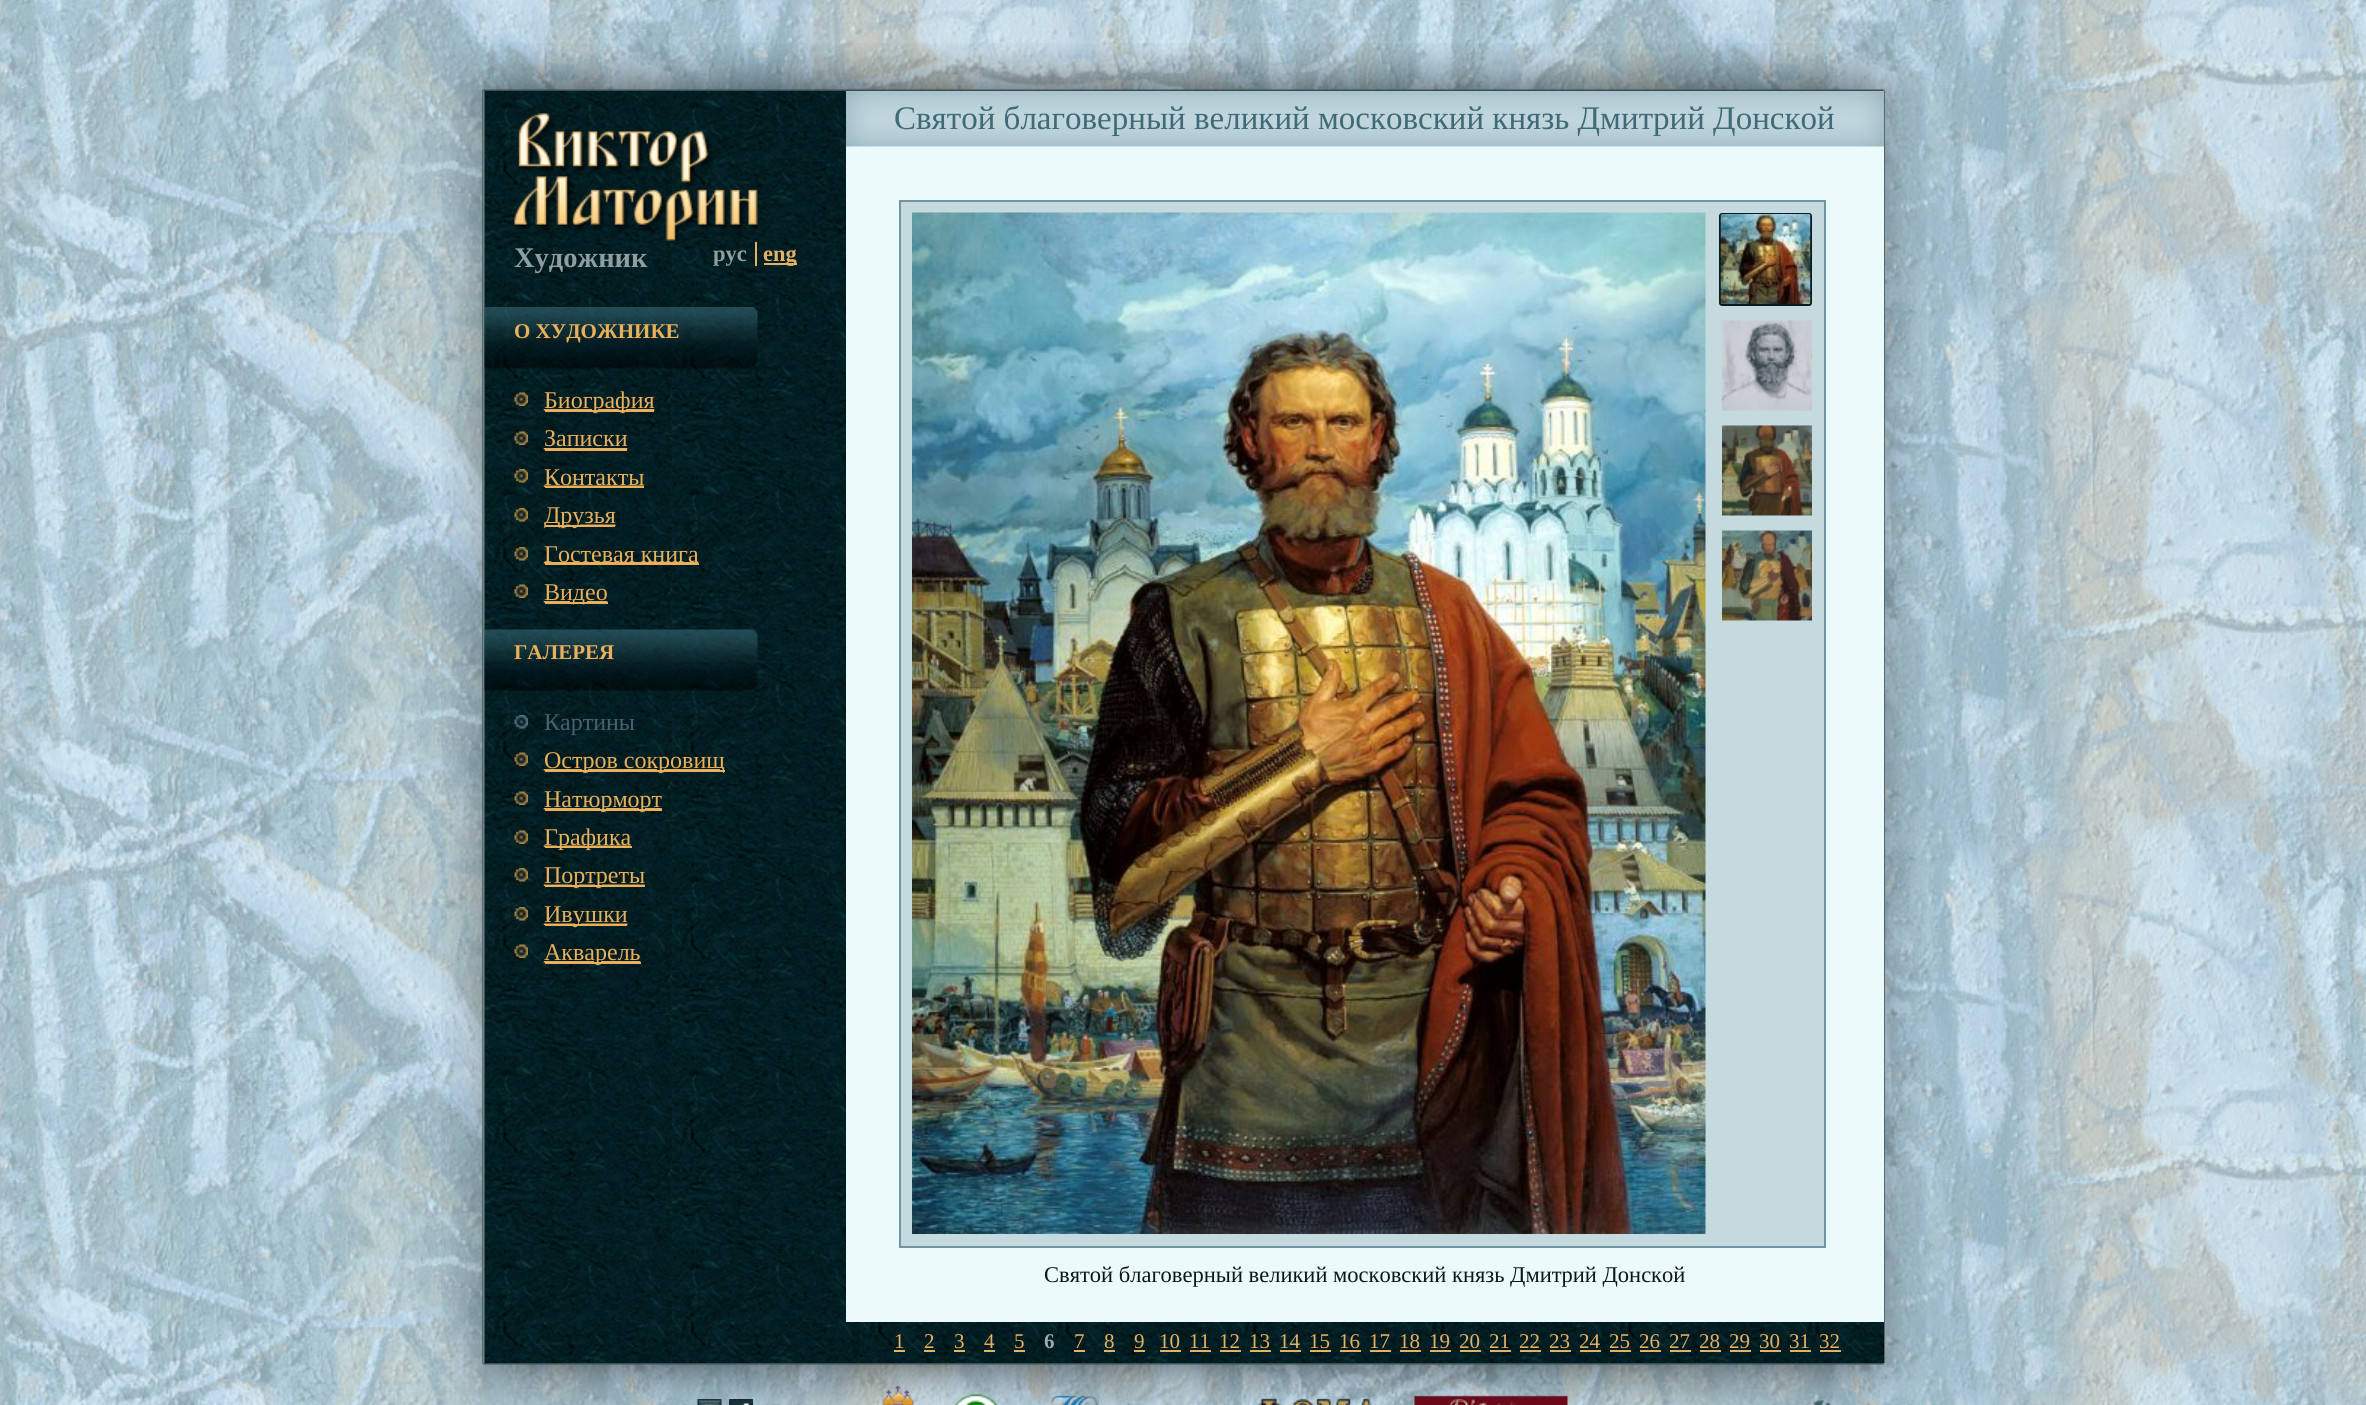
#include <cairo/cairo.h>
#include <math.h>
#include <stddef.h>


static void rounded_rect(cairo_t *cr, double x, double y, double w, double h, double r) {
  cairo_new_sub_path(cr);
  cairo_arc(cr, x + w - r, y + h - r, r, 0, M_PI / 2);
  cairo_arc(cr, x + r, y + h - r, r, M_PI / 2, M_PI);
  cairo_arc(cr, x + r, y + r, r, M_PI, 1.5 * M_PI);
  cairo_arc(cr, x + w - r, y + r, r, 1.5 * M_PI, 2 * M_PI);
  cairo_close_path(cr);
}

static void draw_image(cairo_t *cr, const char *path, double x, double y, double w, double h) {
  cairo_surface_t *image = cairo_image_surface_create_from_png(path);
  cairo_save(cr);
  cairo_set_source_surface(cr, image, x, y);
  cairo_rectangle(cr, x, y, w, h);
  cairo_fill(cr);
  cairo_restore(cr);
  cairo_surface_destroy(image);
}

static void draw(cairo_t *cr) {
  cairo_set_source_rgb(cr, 1, 1, 1);
  cairo_paint(cr);
  draw_image(cr, "images/1.png", 0, 0, 2366, 1405);
  draw_image(cr, "images/2.png", 443, 43, 1482, 48);
  draw_image(cr, "images/3.png", 441, 91, 1485, 1272);
  draw_image(cr, "images/4.png", 484, 91, 1400, 1272);
  draw_image(cr, "images/5.png", 484, 91, 1, 1272);
  draw_image(cr, "images/6.png", 514, 113, 244, 128);
  cairo_set_source_rgb(cr, 228 / 255.0, 178 / 255.0, 100 / 255.0);
  cairo_rectangle(cr, 755, 242, 2, 24);
  cairo_fill(cr);
  cairo_rectangle(cr, 764, 263, 33, 2);
  cairo_fill(cr);
  draw_image(cr, "images/7.png", 484, 307, 274, 62);
  draw_image(cr, "images/8.png", 514, 392, 141, 19);
  cairo_set_source_rgb(cr, 232 / 255.0, 176 / 255.0, 91 / 255.0);
  cairo_rectangle(cr, 545, 410, 109, 2);
  cairo_fill(cr);
  draw_image(cr, "images/9.png", 514, 431, 114, 19);
  cairo_rectangle(cr, 545, 449, 82, 2);
  cairo_fill(cr);
  draw_image(cr, "images/10.png", 514, 469, 130, 18);
  cairo_rectangle(cr, 545, 487, 99, 1);
  cairo_fill(cr);
  draw_image(cr, "images/11.png", 514, 508, 102, 18);
  cairo_rectangle(cr, 545, 525, 70, 2);
  cairo_fill(cr);
  draw_image(cr, "images/12.png", 514, 547, 185, 17);
  cairo_rectangle(cr, 545, 563, 154, 2);
  cairo_fill(cr);
  draw_image(cr, "images/13.png", 514, 584, 94, 19);
  cairo_rectangle(cr, 545, 602, 63, 2);
  cairo_fill(cr);
  draw_image(cr, "images/14.png", 484, 629, 274, 62);
  draw_image(cr, "images/15.png", 514, 715, 14, 14);
  draw_image(cr, "images/16.png", 514, 752, 206, 19);
  cairo_rectangle(cr, 545, 770, 180, 2);
  cairo_fill(cr);
  draw_image(cr, "images/17.png", 514, 791, 148, 19);
  cairo_rectangle(cr, 545, 809, 117, 2);
  cairo_fill(cr);
  draw_image(cr, "images/18.png", 514, 830, 117, 17);
  cairo_rectangle(cr, 545, 846, 87, 2);
  cairo_fill(cr);
  draw_image(cr, "images/19.png", 514, 868, 131, 18);
  cairo_rectangle(cr, 545, 885, 100, 2);
  cairo_fill(cr);
  draw_image(cr, "images/20.png", 514, 907, 114, 18);
  cairo_rectangle(cr, 545, 924, 82, 2);
  cairo_fill(cr);
  draw_image(cr, "images/21.png", 514, 944, 127, 19);
  cairo_rectangle(cr, 545, 962, 96, 2);
  cairo_fill(cr);
  cairo_set_source_rgb(cr, 235 / 255.0, 251 / 255.0, 252 / 255.0);
  cairo_rectangle(cr, 846, 146, 1038, 1176);
  cairo_fill(cr);
  draw_image(cr, "images/22.png", 846, 91, 1038, 56);
  cairo_set_source_rgb(cr, 197 / 255.0, 218 / 255.0, 223 / 255.0);
  cairo_rectangle(cr, 900, 201, 925, 1046);
  cairo_fill_preserve(cr);
  cairo_set_source_rgb(cr, 113 / 255.0, 149 / 255.0, 165 / 255.0);
  cairo_stroke(cr);
  draw_image(cr, "images/23.png", 912, 212, 794, 1022);
  rounded_rect(cr, 1720, 214, 91, 91, 2);
  cairo_set_source_rgb(cr, 4 / 255.0, 28 / 255.0, 38 / 255.0);
  cairo_stroke(cr);
  draw_image(cr, "images/24.png", 1720, 214, 91, 90);
  draw_image(cr, "images/25.png", 1722, 320, 90, 91);
  draw_image(cr, "images/26.png", 1722, 425, 90, 91);
  draw_image(cr, "images/27.png", 1722, 530, 90, 91);
  cairo_set_source_rgb(cr, 228 / 255.0, 178 / 255.0, 100 / 255.0);
  cairo_rectangle(cr, 894, 1350, 11, 2);
  cairo_fill(cr);
  cairo_rectangle(cr, 924, 1350, 11, 2);
  cairo_fill(cr);
  cairo_rectangle(cr, 954, 1350, 11, 2);
  cairo_fill(cr);
  cairo_rectangle(cr, 984, 1350, 11, 2);
  cairo_fill(cr);
  cairo_rectangle(cr, 1014, 1350, 11, 2);
  cairo_fill(cr);
  cairo_rectangle(cr, 1074, 1350, 11, 2);
  cairo_fill(cr);
  cairo_rectangle(cr, 1104, 1350, 11, 2);
  cairo_fill(cr);
  cairo_rectangle(cr, 1134, 1350, 11, 2);
  cairo_fill(cr);
  cairo_rectangle(cr, 1160, 1350, 21, 2);
  cairo_fill(cr);
  cairo_rectangle(cr, 1190, 1350, 21, 2);
  cairo_fill(cr);
  cairo_rectangle(cr, 1220, 1350, 21, 2);
  cairo_fill(cr);
  cairo_rectangle(cr, 1250, 1350, 21, 2);
  cairo_fill(cr);
  cairo_rectangle(cr, 1280, 1350, 21, 2);
  cairo_fill(cr);
  cairo_rectangle(cr, 1310, 1350, 21, 2);
  cairo_fill(cr);
  cairo_rectangle(cr, 1340, 1350, 21, 2);
  cairo_fill(cr);
  cairo_rectangle(cr, 1370, 1350, 21, 2);
  cairo_fill(cr);
  cairo_rectangle(cr, 1400, 1350, 21, 2);
  cairo_fill(cr);
  cairo_rectangle(cr, 1430, 1350, 21, 2);
  cairo_fill(cr);
  cairo_rectangle(cr, 1460, 1350, 21, 2);
  cairo_fill(cr);
  cairo_rectangle(cr, 1490, 1350, 21, 2);
  cairo_fill(cr);
  cairo_rectangle(cr, 1520, 1350, 21, 2);
  cairo_fill(cr);
  cairo_rectangle(cr, 1550, 1350, 21, 2);
  cairo_fill(cr);
  cairo_rectangle(cr, 1580, 1350, 21, 2);
  cairo_fill(cr);
  cairo_rectangle(cr, 1610, 1350, 21, 2);
  cairo_fill(cr);
  cairo_rectangle(cr, 1640, 1350, 21, 2);
  cairo_fill(cr);
  cairo_rectangle(cr, 1670, 1350, 21, 2);
  cairo_fill(cr);
  cairo_rectangle(cr, 1700, 1350, 21, 2);
  cairo_fill(cr);
  cairo_rectangle(cr, 1730, 1350, 21, 2);
  cairo_fill(cr);
  cairo_rectangle(cr, 1760, 1350, 21, 2);
  cairo_fill(cr);
  cairo_rectangle(cr, 1790, 1350, 21, 2);
  cairo_fill(cr);
  cairo_rectangle(cr, 1820, 1350, 21, 2);
  cairo_fill(cr);
  draw_image(cr, "images/28.png", 443, 1363, 1482, 42);
  draw_image(cr, "images/29.png", 697, 1399, 25, 6);
  draw_image(cr, "images/30.png", 729, 1399, 24, 6);
  draw_image(cr, "images/31.png", 762, 1404, 18, 1);
  draw_image(cr, "images/32.png", 882, 1385, 36, 20);
  draw_image(cr, "images/33.png", 954, 1394, 44, 11);
  draw_image(cr, "images/34.png", 1051, 1395, 81, 10);
  draw_image(cr, "images/35.png", 1257, 1398, 115, 7);
  draw_image(cr, "images/36.png", 1414, 1395, 154, 10);
  draw_image(cr, "images/37.png", 1813, 1400, 58, 5);
  cairo_select_font_face(cr, "Liberation Serif", CAIRO_FONT_SLANT_NORMAL, CAIRO_FONT_WEIGHT_BOLD);
  cairo_set_font_size(cr, 28.5);
  cairo_set_source_rgb(cr, 143 / 255.0, 158 / 255.0, 159 / 255.0);
  cairo_move_to(cr, 514, 267);
  cairo_show_text(cr, "Художник");
  cairo_set_font_size(cr, 22.5);
  cairo_move_to(cr, 713, 261);
  cairo_show_text(cr, "рус");
  cairo_set_source_rgb(cr, 228 / 255.0, 178 / 255.0, 100 / 255.0);
  cairo_move_to(cr, 763, 261);
  cairo_show_text(cr, "eng");
  cairo_set_font_size(cr, 21);
  cairo_set_source_rgb(cr, 232 / 255.0, 176 / 255.0, 91 / 255.0);
  cairo_move_to(cr, 514, 338);
  cairo_show_text(cr, "О ХУДОЖНИКЕ");
  cairo_select_font_face(cr, "Liberation Serif", CAIRO_FONT_SLANT_NORMAL, CAIRO_FONT_WEIGHT_NORMAL);
  cairo_set_font_size(cr, 24);
  cairo_move_to(cr, 544, 408);
  cairo_show_text(cr, "Биография");
  cairo_move_to(cr, 544, 446);
  cairo_show_text(cr, "Записки");
  cairo_move_to(cr, 544, 485);
  cairo_show_text(cr, "Контакты");
  cairo_move_to(cr, 544, 523);
  cairo_show_text(cr, "Друзья");
  cairo_move_to(cr, 544, 562);
  cairo_show_text(cr, "Гостевая книга");
  cairo_move_to(cr, 544, 600);
  cairo_show_text(cr, "Видео");
  cairo_select_font_face(cr, "Liberation Serif", CAIRO_FONT_SLANT_NORMAL, CAIRO_FONT_WEIGHT_BOLD);
  cairo_set_font_size(cr, 21);
  cairo_move_to(cr, 514, 659);
  cairo_show_text(cr, "ГАЛЕРЕЯ");
  cairo_select_font_face(cr, "Liberation Serif", CAIRO_FONT_SLANT_NORMAL, CAIRO_FONT_WEIGHT_NORMAL);
  cairo_set_font_size(cr, 24);
  cairo_set_source_rgb(cr, 71 / 255.0, 96 / 255.0, 112 / 255.0);
  cairo_move_to(cr, 544, 730);
  cairo_show_text(cr, "Картины");
  cairo_set_source_rgb(cr, 232 / 255.0, 176 / 255.0, 91 / 255.0);
  cairo_move_to(cr, 544, 768);
  cairo_show_text(cr, "Остров сокровищ");
  cairo_move_to(cr, 544, 807);
  cairo_show_text(cr, "Натюрморт");
  cairo_move_to(cr, 544, 845);
  cairo_show_text(cr, "Графика");
  cairo_move_to(cr, 544, 883);
  cairo_show_text(cr, "Портреты");
  cairo_move_to(cr, 544, 922);
  cairo_show_text(cr, "Ивушки");
  cairo_move_to(cr, 544, 960);
  cairo_show_text(cr, "Акварель");
  cairo_set_font_size(cr, 33);
  cairo_set_source_rgb(cr, 63 / 255.0, 106 / 255.0, 119 / 255.0);
  cairo_move_to(cr, 894, 129);
  cairo_show_text(cr, "Святой благоверный великий московский князь Дмитрий Донской");
  cairo_set_font_size(cr, 22.5);
  cairo_set_source_rgb(cr, 8 / 255.0, 23 / 255.0, 27 / 255.0);
  cairo_move_to(cr, 1044, 1282);
  cairo_show_text(cr, "Святой благоверный великий московский князь Дмитрий Донской");
  cairo_set_font_size(cr, 21);
  cairo_set_source_rgb(cr, 228 / 255.0, 178 / 255.0, 100 / 255.0);
  cairo_move_to(cr, 894, 1348);
  cairo_show_text(cr, "1");
  cairo_move_to(cr, 924, 1348);
  cairo_show_text(cr, "2");
  cairo_move_to(cr, 954, 1348);
  cairo_show_text(cr, "3");
  cairo_move_to(cr, 984, 1348);
  cairo_show_text(cr, "4");
  cairo_move_to(cr, 1014, 1348);
  cairo_show_text(cr, "5");
  cairo_select_font_face(cr, "Liberation Serif", CAIRO_FONT_SLANT_NORMAL, CAIRO_FONT_WEIGHT_BOLD);
  cairo_set_source_rgb(cr, 154 / 255.0, 169 / 255.0, 172 / 255.0);
  cairo_move_to(cr, 1044, 1348);
  cairo_show_text(cr, "6");
  cairo_select_font_face(cr, "Liberation Serif", CAIRO_FONT_SLANT_NORMAL, CAIRO_FONT_WEIGHT_NORMAL);
  cairo_set_source_rgb(cr, 228 / 255.0, 178 / 255.0, 100 / 255.0);
  cairo_move_to(cr, 1074, 1348);
  cairo_show_text(cr, "7");
  cairo_move_to(cr, 1104, 1348);
  cairo_show_text(cr, "8");
  cairo_move_to(cr, 1134, 1348);
  cairo_show_text(cr, "9");
  cairo_move_to(cr, 1159, 1348);
  cairo_show_text(cr, "10");
  cairo_move_to(cr, 1189, 1348);
  cairo_show_text(cr, "11");
  cairo_move_to(cr, 1219, 1348);
  cairo_show_text(cr, "12");
  cairo_move_to(cr, 1249, 1348);
  cairo_show_text(cr, "13");
  cairo_move_to(cr, 1279, 1348);
  cairo_show_text(cr, "14");
  cairo_move_to(cr, 1309, 1348);
  cairo_show_text(cr, "15");
  cairo_move_to(cr, 1339, 1348);
  cairo_show_text(cr, "16");
  cairo_move_to(cr, 1369, 1348);
  cairo_show_text(cr, "17");
  cairo_move_to(cr, 1399, 1348);
  cairo_show_text(cr, "18");
  cairo_move_to(cr, 1429, 1348);
  cairo_show_text(cr, "19");
  cairo_move_to(cr, 1459, 1348);
  cairo_show_text(cr, "20");
  cairo_move_to(cr, 1489, 1348);
  cairo_show_text(cr, "21");
  cairo_move_to(cr, 1519, 1348);
  cairo_show_text(cr, "22");
  cairo_move_to(cr, 1549, 1348);
  cairo_show_text(cr, "23");
  cairo_move_to(cr, 1579, 1348);
  cairo_show_text(cr, "24");
  cairo_move_to(cr, 1609, 1348);
  cairo_show_text(cr, "25");
  cairo_move_to(cr, 1639, 1348);
  cairo_show_text(cr, "26");
  cairo_move_to(cr, 1669, 1348);
  cairo_show_text(cr, "27");
  cairo_move_to(cr, 1699, 1348);
  cairo_show_text(cr, "28");
  cairo_move_to(cr, 1729, 1348);
  cairo_show_text(cr, "29");
  cairo_move_to(cr, 1759, 1348);
  cairo_show_text(cr, "30");
  cairo_move_to(cr, 1789, 1348);
  cairo_show_text(cr, "31");
  cairo_move_to(cr, 1819, 1348);
  cairo_show_text(cr, "32");
}

int main(void) {
  cairo_surface_t *surface = cairo_image_surface_create(CAIRO_FORMAT_RGB24, 2366, 1405);
  cairo_t *cr = cairo_create(surface);
  cairo_font_options_t *options = cairo_font_options_create();
  cairo_font_options_set_hint_metrics(options, CAIRO_HINT_METRICS_OFF);
  cairo_font_options_set_hint_style(options, CAIRO_HINT_STYLE_NONE);
  cairo_set_font_options(cr, options);
  cairo_set_miter_limit(cr, 4);
  draw(cr);
  cairo_surface_write_to_png(surface, "out.png");
  cairo_font_options_destroy(options);
  cairo_destroy(cr);
  cairo_surface_destroy(surface);
  return 0;
}
